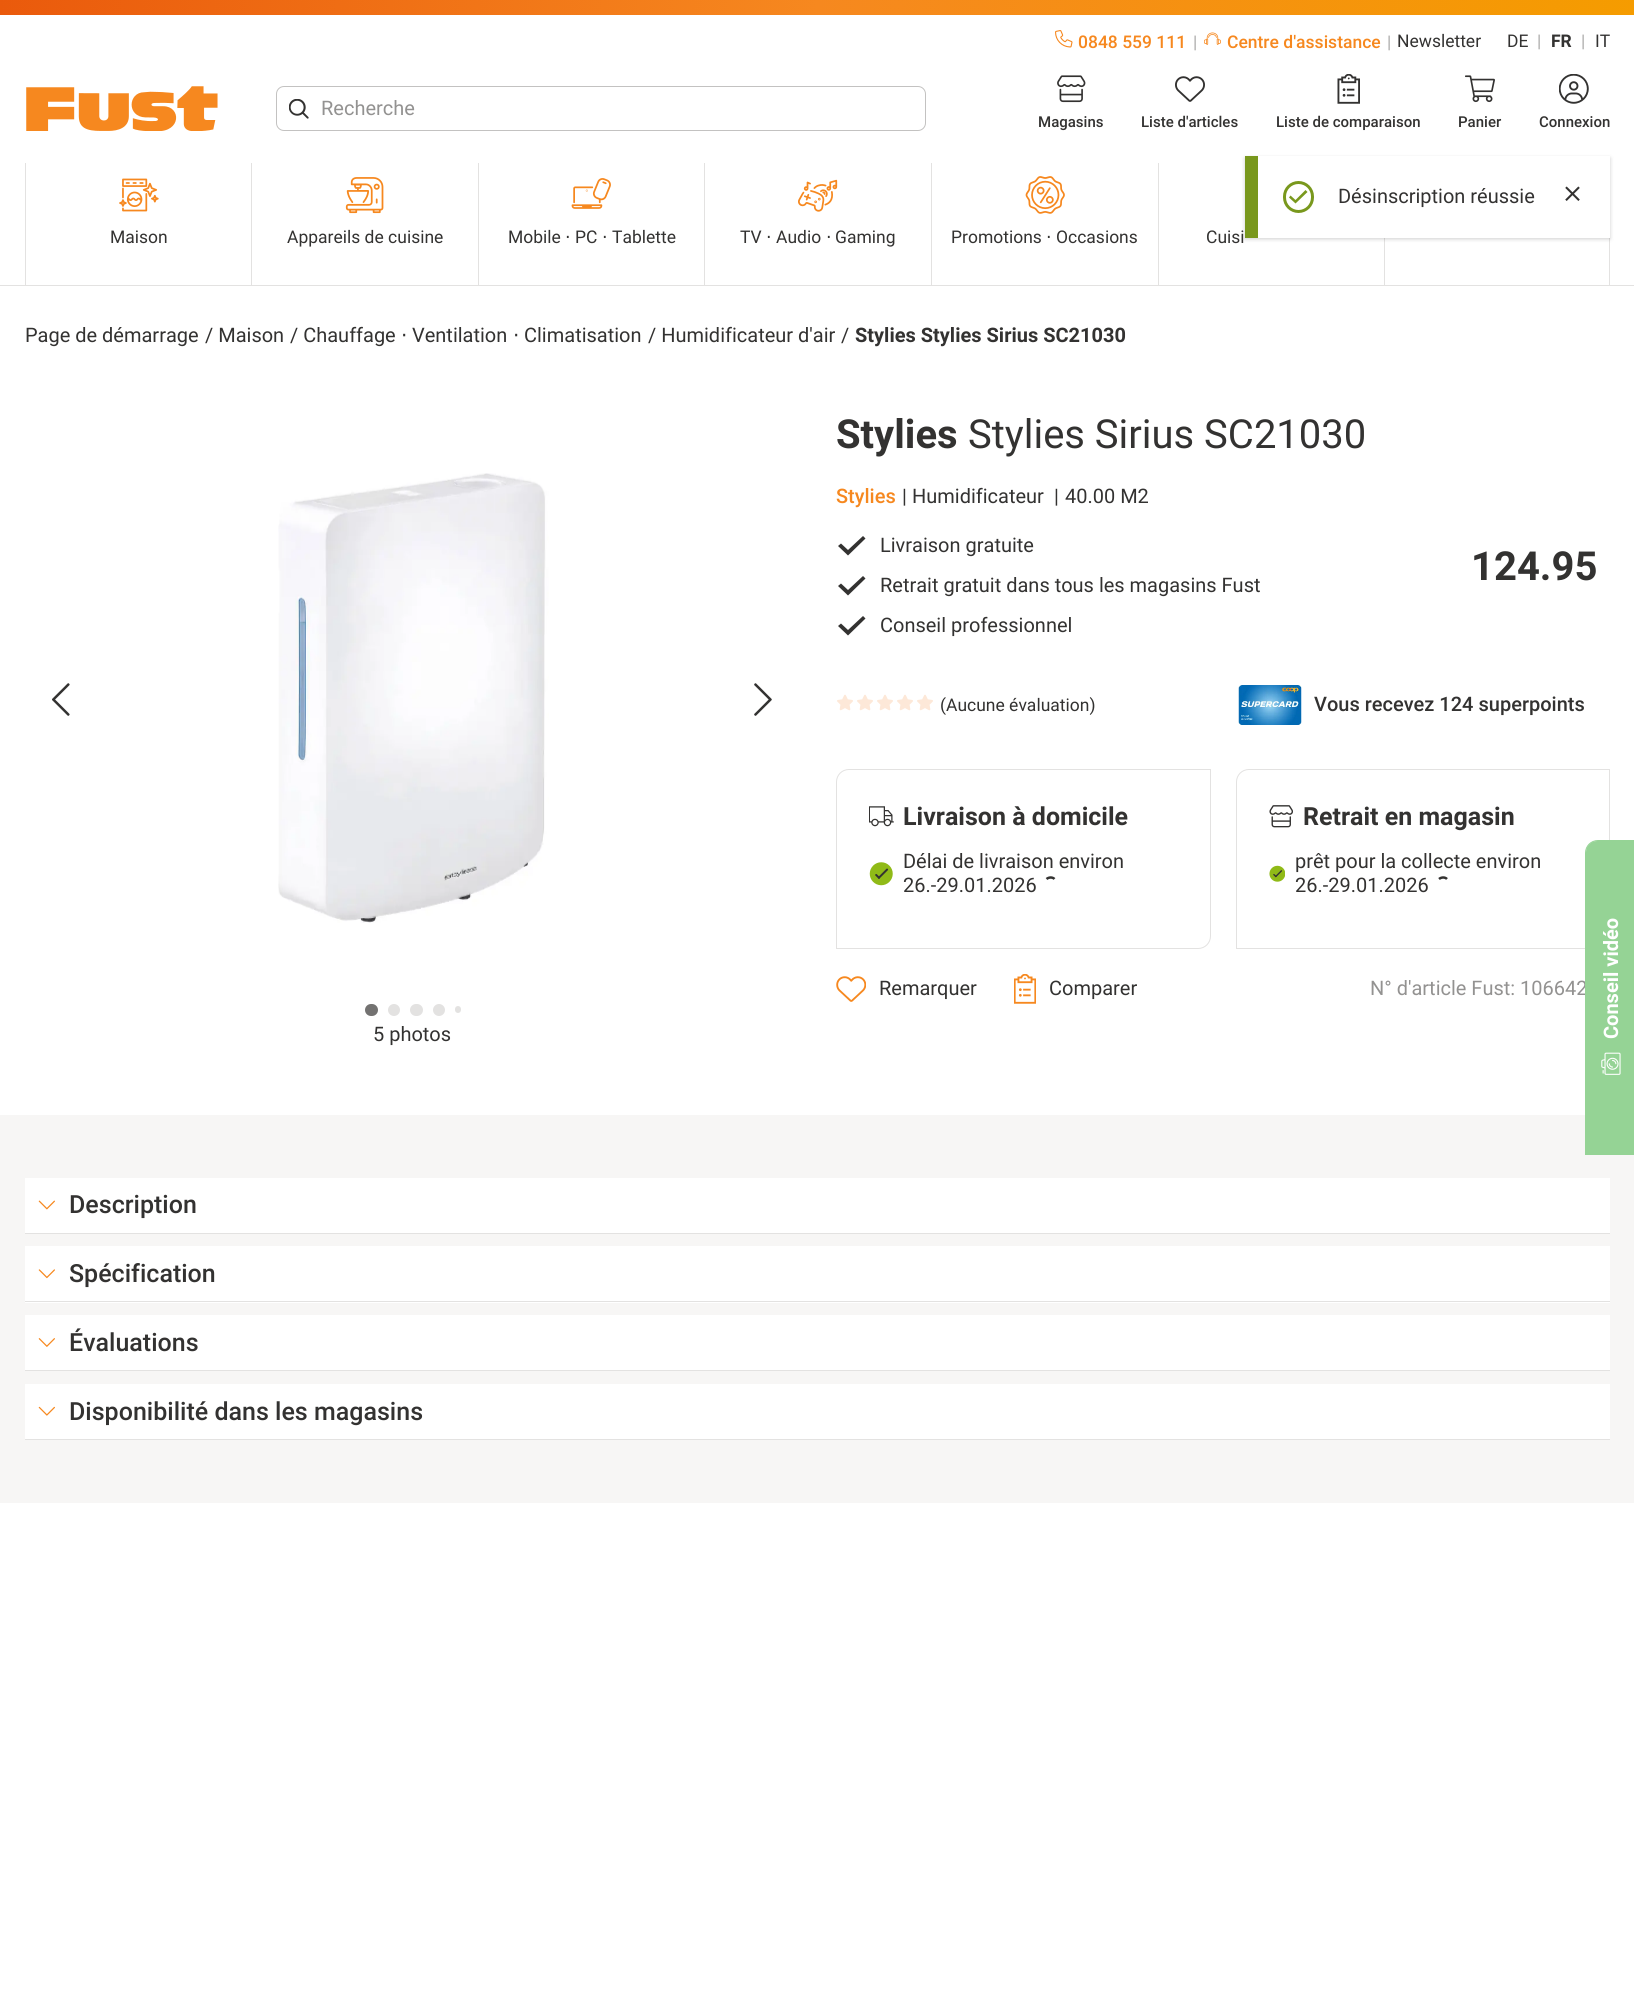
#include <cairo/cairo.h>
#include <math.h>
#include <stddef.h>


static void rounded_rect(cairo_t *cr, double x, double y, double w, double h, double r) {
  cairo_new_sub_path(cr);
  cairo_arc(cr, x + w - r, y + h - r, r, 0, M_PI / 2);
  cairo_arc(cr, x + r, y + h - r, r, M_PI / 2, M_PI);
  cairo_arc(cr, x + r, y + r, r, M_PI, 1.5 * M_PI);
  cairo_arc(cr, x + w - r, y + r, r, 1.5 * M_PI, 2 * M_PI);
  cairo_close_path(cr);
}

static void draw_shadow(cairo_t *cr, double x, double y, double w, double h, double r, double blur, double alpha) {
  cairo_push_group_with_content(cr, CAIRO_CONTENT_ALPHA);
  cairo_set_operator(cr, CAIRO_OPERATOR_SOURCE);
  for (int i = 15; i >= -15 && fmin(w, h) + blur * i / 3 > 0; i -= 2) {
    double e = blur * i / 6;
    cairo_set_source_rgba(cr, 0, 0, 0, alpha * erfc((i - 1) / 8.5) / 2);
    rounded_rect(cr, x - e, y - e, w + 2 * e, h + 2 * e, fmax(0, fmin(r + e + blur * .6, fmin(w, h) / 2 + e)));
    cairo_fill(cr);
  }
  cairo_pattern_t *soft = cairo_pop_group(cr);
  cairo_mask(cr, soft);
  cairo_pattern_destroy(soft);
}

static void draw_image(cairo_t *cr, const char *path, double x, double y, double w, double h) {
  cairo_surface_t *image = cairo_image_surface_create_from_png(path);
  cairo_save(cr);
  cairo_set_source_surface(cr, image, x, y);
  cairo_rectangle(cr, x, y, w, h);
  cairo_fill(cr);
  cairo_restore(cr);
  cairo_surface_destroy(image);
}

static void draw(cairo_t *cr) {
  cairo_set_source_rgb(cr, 1, 1, 1);
  cairo_paint(cr);
  draw_image(cr, "images/1.png", 0, 0, 1634, 15);
  draw_image(cr, "images/2.png", 1055, 30, 18, 18);
  draw_image(cr, "images/3.png", 1204, 32, 17, 13);
  draw_image(cr, "images/4.png", 26, 86, 192, 45);
  rounded_rect(cr, 276.5, 86.5, 649, 44, 7.5);
  cairo_set_source_rgb(cr, 195 / 255.0, 194 / 255.0, 193 / 255.0);
  cairo_set_line_width(cr, 1);
  cairo_stroke(cr);
  draw_image(cr, "images/5.png", 289, 99, 20, 20);
  draw_image(cr, "images/6.png", 1057, 75, 29, 28);
  draw_image(cr, "images/7.png", 1175, 76, 30, 26);
  draw_image(cr, "images/8.png", 1337, 74, 23, 30);
  draw_image(cr, "images/9.png", 1465, 75, 30, 28);
  draw_image(cr, "images/10.png", 1559, 74, 30, 30);
  cairo_set_source_rgb(cr, 227 / 255.0, 226 / 255.0, 225 / 255.0);
  cairo_rectangle(cr, 1609, 238, 1, 47);
  cairo_fill(cr);
  cairo_rectangle(cr, 1384, 238, 1, 47);
  cairo_fill(cr);
  cairo_set_source_rgb(cr, 0, 0, 0);
  draw_shadow(cr, 1245, 158, 365, 81, 0, 2, 0.2);
  cairo_set_source_rgb(cr, 1, 1, 1);
  cairo_rectangle(cr, 1258, 156, 352, 82);
  cairo_fill(cr);
  cairo_set_source_rgb(cr, 121 / 255.0, 152 / 255.0, 29 / 255.0);
  cairo_rectangle(cr, 1245, 156, 13, 82);
  cairo_fill(cr);
  rounded_rect(cr, 1284.5, 182.5, 28, 29, 14);
  cairo_set_line_width(cr, 3);
  cairo_stroke(cr);
  cairo_new_path(cr);
  cairo_move_to(cr, 1307.5, 192);
  cairo_line_to(cr, 1295.5, 203.5);
  cairo_line_to(cr, 1289, 197.5);
  cairo_line_to(cr, 1290.5, 195.5);
  cairo_line_to(cr, 1295.5, 200);
  cairo_line_to(cr, 1305.5, 190);
  cairo_close_path(cr);
  cairo_fill(cr);
  draw_image(cr, "images/11.png", 1565, 186, 15, 15);
  cairo_set_source_rgb(cr, 227 / 255.0, 226 / 255.0, 225 / 255.0);
  cairo_rectangle(cr, 25, 163, 1, 122);
  cairo_fill(cr);
  draw_image(cr, "images/12.png", 119, 178, 40, 34);
  cairo_rectangle(cr, 251, 163, 1, 122);
  cairo_fill(cr);
  draw_image(cr, "images/13.png", 345, 177, 39, 37);
  cairo_rectangle(cr, 478, 163, 1, 122);
  cairo_fill(cr);
  draw_image(cr, "images/14.png", 571, 178, 40, 31);
  cairo_rectangle(cr, 704, 163, 1, 122);
  cairo_fill(cr);
  draw_image(cr, "images/15.png", 798, 179, 40, 33);
  cairo_rectangle(cr, 931, 163, 1, 122);
  cairo_fill(cr);
  draw_image(cr, "images/16.png", 1025, 176, 40, 38);
  cairo_rectangle(cr, 1158, 163, 1, 122);
  cairo_fill(cr);
  cairo_rectangle(cr, 0, 285, 1634, 1);
  cairo_fill(cr);
  cairo_set_source_rgb(cr, 51 / 255.0, 50 / 255.0, 49 / 255.0);
  cairo_new_path(cr);
  cairo_move_to(cr, 865.5, 538.5);
  cairo_line_to(cr, 848, 555.5);
  cairo_line_to(cr, 838, 546);
  cairo_line_to(cr, 841, 543.5);
  cairo_line_to(cr, 848, 550);
  cairo_line_to(cr, 863, 536);
  cairo_close_path(cr);
  cairo_move_to(cr, 865.5, 578.5);
  cairo_line_to(cr, 848, 595.5);
  cairo_line_to(cr, 838, 586);
  cairo_line_to(cr, 841, 583.5);
  cairo_line_to(cr, 848, 590);
  cairo_line_to(cr, 863, 576);
  cairo_close_path(cr);
  cairo_fill(cr);
  cairo_new_path(cr);
  cairo_move_to(cr, 865.5, 618.5);
  cairo_line_to(cr, 848, 635.5);
  cairo_line_to(cr, 838, 626);
  cairo_line_to(cr, 841, 623.5);
  cairo_line_to(cr, 848, 630);
  cairo_line_to(cr, 863, 616);
  cairo_close_path(cr);
  cairo_fill(cr);
  draw_image(cr, "images/17.png", 837, 694, 16, 17);
  draw_image(cr, "images/17.png", 857, 694, 16, 17);
  draw_image(cr, "images/17.png", 877, 694, 16, 17);
  draw_image(cr, "images/17.png", 897, 694, 16, 17);
  draw_image(cr, "images/17.png", 917, 694, 16, 17);
  draw_image(cr, "images/18.png", 1238, 685, 64, 40);
  cairo_new_path(cr);
  cairo_move_to(cr, 849, 769.5);
  cairo_line_to(cr, 1210.5, 769.5);
  cairo_line_to(cr, 1210.5, 936);
  cairo_curve_to(cr, 1210.5, 943, 1205, 948.5, 1198, 948.5);
  cairo_line_to(cr, 836.5, 948.5);
  cairo_line_to(cr, 836.5, 782);
  cairo_curve_to(cr, 836.5, 775, 842, 769.5, 849, 769.5);
  cairo_close_path(cr);
  cairo_set_source_rgb(cr, 227 / 255.0, 226 / 255.0, 225 / 255.0);
  cairo_set_line_width(cr, 1);
  cairo_stroke(cr);
  draw_image(cr, "images/19.png", 869, 806, 25, 21);
  draw_image(cr, "images/20.png", 869, 862, 24, 24);
  cairo_new_path(cr);
  cairo_move_to(cr, 1046.5, 879);
  cairo_curve_to(cr, 1049, 877, 1052.5, 877, 1054.5, 879);
  cairo_move_to(cr, 1046.5, 879);
  cairo_curve_to(cr, 1049, 877, 1052.5, 877, 1054.5, 879);
  cairo_move_to(cr, 1046.5, 879);
  cairo_curve_to(cr, 1049, 877, 1052.5, 877, 1054.5, 879);
  cairo_move_to(cr, 1046.5, 879);
  cairo_curve_to(cr, 1049, 877, 1052.5, 877, 1054.5, 879);
  cairo_set_source_rgb(cr, 51 / 255.0, 50 / 255.0, 49 / 255.0);
  cairo_set_line_width(cr, 2.5);
  cairo_stroke(cr);
  cairo_new_path(cr);
  cairo_move_to(cr, 1249, 769.5);
  cairo_line_to(cr, 1609.5, 769.5);
  cairo_line_to(cr, 1609.5, 936);
  cairo_curve_to(cr, 1609.5, 943, 1604, 948.5, 1597, 948.5);
  cairo_line_to(cr, 1236.5, 948.5);
  cairo_line_to(cr, 1236.5, 782);
  cairo_curve_to(cr, 1236.5, 775, 1242, 769.5, 1249, 769.5);
  cairo_close_path(cr);
  cairo_set_source_rgb(cr, 227 / 255.0, 226 / 255.0, 225 / 255.0);
  cairo_set_line_width(cr, 1);
  cairo_stroke(cr);
  draw_image(cr, "images/21.png", 1269, 805, 24, 23);
  draw_image(cr, "images/22.png", 1269, 865, 16, 17);
  cairo_new_path(cr);
  cairo_move_to(cr, 1439, 879);
  cairo_curve_to(cr, 1441.5, 877, 1445, 877, 1447, 879);
  cairo_move_to(cr, 1439, 879);
  cairo_curve_to(cr, 1441.5, 877, 1445, 877, 1447, 879);
  cairo_move_to(cr, 1439, 879);
  cairo_curve_to(cr, 1441.5, 877, 1445, 877, 1447, 879);
  cairo_move_to(cr, 1439, 879);
  cairo_curve_to(cr, 1441.5, 877, 1445, 877, 1447, 879);
  cairo_set_source_rgb(cr, 51 / 255.0, 50 / 255.0, 49 / 255.0);
  cairo_set_line_width(cr, 2.5);
  cairo_stroke(cr);
  draw_image(cr, "images/23.png", 836, 976, 30, 26);
  draw_image(cr, "images/24.png", 1014, 974, 22, 30);
  draw_image(cr, "images/25.png", 52, 683, 18, 33);
  draw_image(cr, "images/26.png", 278, 473, 271, 450);
  draw_image(cr, "images/27.png", 754, 683, 18, 33);
  cairo_set_source_rgb(cr, 115 / 255.0, 114 / 255.0, 113 / 255.0);
  rounded_rect(cr, 365, 1004, 13, 12, 6);
  cairo_fill(cr);
  cairo_set_source_rgb(cr, 227 / 255.0, 226 / 255.0, 225 / 255.0);
  cairo_arc(cr, 394, 1010, 6, 0, 2 * M_PI);
  cairo_fill(cr);
  rounded_rect(cr, 410, 1004, 13, 12, 6);
  cairo_fill(cr);
  cairo_arc(cr, 439, 1010, 6, 0, 2 * M_PI);
  cairo_fill(cr);
  rounded_rect(cr, 455, 1006, 6, 7, 3);
  cairo_fill(cr);
  cairo_set_source_rgb(cr, 247 / 255.0, 246 / 255.0, 245 / 255.0);
  cairo_rectangle(cr, 0, 1115, 1634, 388);
  cairo_fill(cr);
  cairo_set_source_rgb(cr, 1, 1, 1);
  cairo_rectangle(cr, 25, 1178, 1585, 55);
  cairo_fill(cr);
  cairo_set_source_rgb(cr, 227 / 255.0, 226 / 255.0, 225 / 255.0);
  cairo_rectangle(cr, 25, 1233, 1585, 1);
  cairo_fill(cr);
  draw_image(cr, "images/28.png", 38, 1200, 17, 10);
  cairo_set_source_rgb(cr, 1, 1, 1);
  cairo_rectangle(cr, 25, 1246, 1585, 57);
  cairo_fill(cr);
  cairo_set_source_rgb(cr, 227 / 255.0, 226 / 255.0, 225 / 255.0);
  cairo_rectangle(cr, 25, 1301, 1585, 1);
  cairo_fill(cr);
  draw_image(cr, "images/29.png", 38, 1269, 17, 10);
  cairo_set_source_rgb(cr, 1, 1, 1);
  cairo_rectangle(cr, 25, 1315, 1585, 55);
  cairo_fill(cr);
  cairo_set_source_rgb(cr, 227 / 255.0, 226 / 255.0, 225 / 255.0);
  cairo_rectangle(cr, 25, 1370, 1585, 1);
  cairo_fill(cr);
  draw_image(cr, "images/30.png", 38, 1338, 17, 9);
  cairo_set_source_rgb(cr, 1, 1, 1);
  cairo_rectangle(cr, 25, 1384, 1585, 55);
  cairo_fill(cr);
  cairo_set_source_rgb(cr, 227 / 255.0, 226 / 255.0, 225 / 255.0);
  cairo_rectangle(cr, 25, 1439, 1585, 1);
  cairo_fill(cr);
  draw_image(cr, "images/31.png", 38, 1406, 17, 10);
  cairo_select_font_face(cr, "Roboto Medium", CAIRO_FONT_SLANT_NORMAL, CAIRO_FONT_WEIGHT_NORMAL);
  cairo_set_font_size(cr, 17.5);
  cairo_set_source_rgb(cr, 246 / 255.0, 136 / 255.0, 31 / 255.0);
  cairo_move_to(cr, 1078, 48);
  cairo_show_text(cr, "0848 559 111");
  cairo_select_font_face(cr, "Roboto", CAIRO_FONT_SLANT_NORMAL, CAIRO_FONT_WEIGHT_NORMAL);
  cairo_set_source_rgb(cr, 171 / 255.0, 170 / 255.0, 169 / 255.0);
  cairo_move_to(cr, 1193, 48);
  cairo_show_text(cr, "|");
  cairo_select_font_face(cr, "Roboto Medium", CAIRO_FONT_SLANT_NORMAL, CAIRO_FONT_WEIGHT_NORMAL);
  cairo_set_source_rgb(cr, 246 / 255.0, 136 / 255.0, 31 / 255.0);
  cairo_move_to(cr, 1227, 48);
  cairo_show_text(cr, "Centre d'assistance");
  cairo_select_font_face(cr, "Roboto", CAIRO_FONT_SLANT_NORMAL, CAIRO_FONT_WEIGHT_NORMAL);
  cairo_set_source_rgb(cr, 171 / 255.0, 170 / 255.0, 169 / 255.0);
  cairo_move_to(cr, 1387, 48);
  cairo_show_text(cr, "|");
  cairo_set_source_rgb(cr, 51 / 255.0, 50 / 255.0, 49 / 255.0);
  cairo_move_to(cr, 1397, 47);
  cairo_show_text(cr, "Newsletter");
  cairo_move_to(cr, 1507, 47);
  cairo_show_text(cr, "DE");
  cairo_set_source_rgb(cr, 171 / 255.0, 170 / 255.0, 169 / 255.0);
  cairo_move_to(cr, 1537, 47);
  cairo_show_text(cr, "|");
  cairo_select_font_face(cr, "Roboto", CAIRO_FONT_SLANT_NORMAL, CAIRO_FONT_WEIGHT_BOLD);
  cairo_set_source_rgb(cr, 51 / 255.0, 50 / 255.0, 49 / 255.0);
  cairo_move_to(cr, 1551, 47);
  cairo_show_text(cr, "FR");
  cairo_select_font_face(cr, "Roboto", CAIRO_FONT_SLANT_NORMAL, CAIRO_FONT_WEIGHT_NORMAL);
  cairo_set_source_rgb(cr, 171 / 255.0, 170 / 255.0, 169 / 255.0);
  cairo_move_to(cr, 1581, 47);
  cairo_show_text(cr, "|");
  cairo_set_source_rgb(cr, 51 / 255.0, 50 / 255.0, 49 / 255.0);
  cairo_move_to(cr, 1595, 47);
  cairo_show_text(cr, "IT");
  cairo_set_font_size(cr, 20);
  cairo_set_source_rgb(cr, 147 / 255.0, 146 / 255.0, 145 / 255.0);
  cairo_move_to(cr, 321, 115);
  cairo_show_text(cr, "Recherche");
  cairo_select_font_face(cr, "Roboto Medium", CAIRO_FONT_SLANT_NORMAL, CAIRO_FONT_WEIGHT_NORMAL);
  cairo_set_font_size(cr, 15);
  cairo_set_source_rgb(cr, 51 / 255.0, 50 / 255.0, 49 / 255.0);
  cairo_move_to(cr, 1038, 127);
  cairo_show_text(cr, "Magasins");
  cairo_move_to(cr, 1141, 127);
  cairo_show_text(cr, "Liste d'articles");
  cairo_move_to(cr, 1276, 127);
  cairo_show_text(cr, "Liste de comparaison");
  cairo_move_to(cr, 1458, 127);
  cairo_show_text(cr, "Panier");
  cairo_move_to(cr, 1539, 127);
  cairo_show_text(cr, "Connexion");
  cairo_select_font_face(cr, "Roboto", CAIRO_FONT_SLANT_NORMAL, CAIRO_FONT_WEIGHT_NORMAL);
  cairo_set_font_size(cr, 20);
  cairo_move_to(cr, 1338, 203);
  cairo_show_text(cr, "Désinscription réussie");
  cairo_set_font_size(cr, 17.5);
  cairo_move_to(cr, 110, 243);
  cairo_show_text(cr, "Maison");
  cairo_move_to(cr, 287, 243);
  cairo_show_text(cr, "Appareils de cuisine");
  cairo_move_to(cr, 508, 243);
  cairo_show_text(cr, "Mobile");
  cairo_select_font_face(cr, "DejaVu Sans", CAIRO_FONT_SLANT_NORMAL, CAIRO_FONT_WEIGHT_NORMAL);
  cairo_move_to(cr, 565, 243);
  cairo_show_text(cr, "⋅");
  cairo_select_font_face(cr, "Roboto", CAIRO_FONT_SLANT_NORMAL, CAIRO_FONT_WEIGHT_NORMAL);
  cairo_move_to(cr, 575, 243);
  cairo_show_text(cr, "PC");
  cairo_select_font_face(cr, "DejaVu Sans", CAIRO_FONT_SLANT_NORMAL, CAIRO_FONT_WEIGHT_NORMAL);
  cairo_move_to(cr, 602, 243);
  cairo_show_text(cr, "⋅");
  cairo_select_font_face(cr, "Roboto", CAIRO_FONT_SLANT_NORMAL, CAIRO_FONT_WEIGHT_NORMAL);
  cairo_move_to(cr, 612, 243);
  cairo_show_text(cr, "Tablette");
  cairo_move_to(cr, 740, 243);
  cairo_show_text(cr, "TV");
  cairo_select_font_face(cr, "DejaVu Sans", CAIRO_FONT_SLANT_NORMAL, CAIRO_FONT_WEIGHT_NORMAL);
  cairo_move_to(cr, 766, 243);
  cairo_show_text(cr, "⋅");
  cairo_select_font_face(cr, "Roboto", CAIRO_FONT_SLANT_NORMAL, CAIRO_FONT_WEIGHT_NORMAL);
  cairo_move_to(cr, 776, 243);
  cairo_show_text(cr, "Audio");
  cairo_select_font_face(cr, "DejaVu Sans", CAIRO_FONT_SLANT_NORMAL, CAIRO_FONT_WEIGHT_NORMAL);
  cairo_move_to(cr, 826, 243);
  cairo_show_text(cr, "⋅");
  cairo_select_font_face(cr, "Roboto", CAIRO_FONT_SLANT_NORMAL, CAIRO_FONT_WEIGHT_NORMAL);
  cairo_move_to(cr, 835, 243);
  cairo_show_text(cr, "Gaming");
  cairo_move_to(cr, 951, 243);
  cairo_show_text(cr, "Promotions");
  cairo_select_font_face(cr, "DejaVu Sans", CAIRO_FONT_SLANT_NORMAL, CAIRO_FONT_WEIGHT_NORMAL);
  cairo_move_to(cr, 1046, 243);
  cairo_show_text(cr, "⋅");
  cairo_select_font_face(cr, "Roboto", CAIRO_FONT_SLANT_NORMAL, CAIRO_FONT_WEIGHT_NORMAL);
  cairo_move_to(cr, 1056, 243);
  cairo_show_text(cr, "Occasions");
  cairo_move_to(cr, 1206, 243);
  cairo_show_text(cr, "Cuisi");
  cairo_set_font_size(cr, 20);
  cairo_move_to(cr, 25, 342);
  cairo_show_text(cr, "Page de démarrage");
  cairo_move_to(cr, 205, 342);
  cairo_show_text(cr, "/ Maison");
  cairo_move_to(cr, 290, 342);
  cairo_show_text(cr, "/ Chauffage");
  cairo_select_font_face(cr, "DejaVu Sans", CAIRO_FONT_SLANT_NORMAL, CAIRO_FONT_WEIGHT_NORMAL);
  cairo_move_to(cr, 401, 342);
  cairo_show_text(cr, "⋅");
  cairo_select_font_face(cr, "Roboto", CAIRO_FONT_SLANT_NORMAL, CAIRO_FONT_WEIGHT_NORMAL);
  cairo_move_to(cr, 412, 342);
  cairo_show_text(cr, "Ventilation");
  cairo_select_font_face(cr, "DejaVu Sans", CAIRO_FONT_SLANT_NORMAL, CAIRO_FONT_WEIGHT_NORMAL);
  cairo_move_to(cr, 513, 342);
  cairo_show_text(cr, "⋅");
  cairo_select_font_face(cr, "Roboto", CAIRO_FONT_SLANT_NORMAL, CAIRO_FONT_WEIGHT_NORMAL);
  cairo_move_to(cr, 524, 342);
  cairo_show_text(cr, "Climatisation");
  cairo_move_to(cr, 648, 342);
  cairo_show_text(cr, "/ Humidificateur d'air");
  cairo_move_to(cr, 841, 342);
  cairo_show_text(cr, "/");
  cairo_select_font_face(cr, "Roboto", CAIRO_FONT_SLANT_NORMAL, CAIRO_FONT_WEIGHT_BOLD);
  cairo_move_to(cr, 855, 342);
  cairo_show_text(cr, "Stylies Stylies Sirius SC21030");
  cairo_set_font_size(cr, 40);
  cairo_move_to(cr, 836, 448);
  cairo_show_text(cr, "Stylies");
  cairo_select_font_face(cr, "Roboto", CAIRO_FONT_SLANT_NORMAL, CAIRO_FONT_WEIGHT_NORMAL);
  cairo_move_to(cr, 968, 448);
  cairo_show_text(cr, "Stylies Sirius SC21030");
  cairo_select_font_face(cr, "Roboto Medium", CAIRO_FONT_SLANT_NORMAL, CAIRO_FONT_WEIGHT_NORMAL);
  cairo_set_font_size(cr, 20);
  cairo_set_source_rgb(cr, 246 / 255.0, 136 / 255.0, 31 / 255.0);
  cairo_move_to(cr, 836, 503);
  cairo_show_text(cr, "Stylies");
  cairo_select_font_face(cr, "Roboto", CAIRO_FONT_SLANT_NORMAL, CAIRO_FONT_WEIGHT_NORMAL);
  cairo_set_source_rgb(cr, 51 / 255.0, 50 / 255.0, 49 / 255.0);
  cairo_move_to(cr, 902, 503);
  cairo_show_text(cr, "|");
  cairo_move_to(cr, 912, 503);
  cairo_show_text(cr, "Humidificateur");
  cairo_move_to(cr, 1054, 503);
  cairo_show_text(cr, "|");
  cairo_move_to(cr, 1065, 503);
  cairo_show_text(cr, "40.00 M2");
  cairo_move_to(cr, 880, 552);
  cairo_show_text(cr, "Livraison gratuite");
  cairo_move_to(cr, 880, 592);
  cairo_show_text(cr, "Retrait gratuit dans tous les magasins Fust");
  cairo_move_to(cr, 880, 632);
  cairo_show_text(cr, "Conseil professionnel");
  cairo_select_font_face(cr, "Roboto", CAIRO_FONT_SLANT_NORMAL, CAIRO_FONT_WEIGHT_BOLD);
  cairo_set_font_size(cr, 40);
  cairo_move_to(cr, 1471, 580);
  cairo_show_text(cr, "124.95");
  cairo_select_font_face(cr, "Roboto", CAIRO_FONT_SLANT_NORMAL, CAIRO_FONT_WEIGHT_NORMAL);
  cairo_set_font_size(cr, 17.5);
  cairo_move_to(cr, 940, 711);
  cairo_show_text(cr, "(Aucune évaluation)");
  cairo_select_font_face(cr, "Roboto Medium", CAIRO_FONT_SLANT_NORMAL, CAIRO_FONT_WEIGHT_NORMAL);
  cairo_set_font_size(cr, 20);
  cairo_move_to(cr, 1314, 711);
  cairo_show_text(cr, "Vous recevez 124 superpoints");
  cairo_select_font_face(cr, "Roboto", CAIRO_FONT_SLANT_NORMAL, CAIRO_FONT_WEIGHT_BOLD);
  cairo_set_font_size(cr, 25);
  cairo_move_to(cr, 903, 825);
  cairo_show_text(cr, "Livraison à domicile");
  cairo_select_font_face(cr, "Roboto", CAIRO_FONT_SLANT_NORMAL, CAIRO_FONT_WEIGHT_NORMAL);
  cairo_set_font_size(cr, 20);
  cairo_move_to(cr, 903, 868);
  cairo_show_text(cr, "Délai de livraison environ");
  cairo_move_to(cr, 903, 892);
  cairo_show_text(cr, "26.-29.01.2026");
  cairo_select_font_face(cr, "Roboto", CAIRO_FONT_SLANT_NORMAL, CAIRO_FONT_WEIGHT_BOLD);
  cairo_set_font_size(cr, 25);
  cairo_move_to(cr, 1303, 825);
  cairo_show_text(cr, "Retrait en magasin");
  cairo_select_font_face(cr, "Roboto", CAIRO_FONT_SLANT_NORMAL, CAIRO_FONT_WEIGHT_NORMAL);
  cairo_set_font_size(cr, 20);
  cairo_move_to(cr, 1295, 868);
  cairo_show_text(cr, "prêt pour la collecte environ");
  cairo_move_to(cr, 1295, 892);
  cairo_show_text(cr, "26.-29.01.2026");
  cairo_move_to(cr, 879, 995);
  cairo_show_text(cr, "Remarquer");
  cairo_move_to(cr, 1049, 995);
  cairo_show_text(cr, "Comparer");
  cairo_set_source_rgb(cr, 147 / 255.0, 146 / 255.0, 145 / 255.0);
  cairo_move_to(cr, 1370, 995);
  cairo_show_text(cr, "N° d'article Fust: 106642");
  cairo_set_source_rgb(cr, 51 / 255.0, 50 / 255.0, 49 / 255.0);
  cairo_move_to(cr, 373, 1041);
  cairo_show_text(cr, "5 photos");
  cairo_select_font_face(cr, "Roboto Medium", CAIRO_FONT_SLANT_NORMAL, CAIRO_FONT_WEIGHT_NORMAL);
  cairo_set_font_size(cr, 25);
  cairo_move_to(cr, 69, 1213);
  cairo_show_text(cr, "Description");
  cairo_move_to(cr, 69, 1282);
  cairo_show_text(cr, "Spécification");
  cairo_move_to(cr, 69, 1351);
  cairo_show_text(cr, "Évaluations");
  cairo_move_to(cr, 69, 1420);
  cairo_show_text(cr, "Disponibilité dans les magasins");
  cairo_new_path(cr);
  cairo_move_to(cr, 1598, 840.5);
  cairo_line_to(cr, 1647.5, 840.5);
  cairo_line_to(cr, 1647.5, 1142);
  cairo_curve_to(cr, 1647.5, 1149, 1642, 1154.5, 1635, 1154.5);
  cairo_line_to(cr, 1585.5, 1154.5);
  cairo_line_to(cr, 1585.5, 853);
  cairo_curve_to(cr, 1585.5, 846, 1591, 840.5, 1598, 840.5);
  cairo_close_path(cr);
  cairo_set_source_rgb(cr, 149 / 255.0, 211 / 255.0, 149 / 255.0);
  cairo_set_line_width(cr, 1);
  cairo_stroke(cr);
  cairo_new_path(cr);
  cairo_move_to(cr, 1597, 841);
  cairo_line_to(cr, 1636, 841);
  cairo_line_to(cr, 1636, 1154);
  cairo_line_to(cr, 1586, 1154);
  cairo_line_to(cr, 1586, 852);
  cairo_curve_to(cr, 1586, 846, 1591, 841, 1597, 841);
  cairo_close_path(cr);
  cairo_fill(cr);
  cairo_select_font_face(cr, "Roboto", CAIRO_FONT_SLANT_NORMAL, CAIRO_FONT_WEIGHT_BOLD);
  cairo_set_font_size(cr, 20);
  cairo_set_source_rgb(cr, 1, 1, 1);
  cairo_save(cr);
  cairo_translate(cr, 1618, 1039);
  cairo_rotate(cr, -90 * M_PI / 180);
  cairo_move_to(cr, 0, 0);
  cairo_show_text(cr, "Conseil vidéo");
  cairo_restore(cr);
  draw_image(cr, "images/32.png", 1601, 1052, 20, 23);
}

int main(void) {
  cairo_surface_t *surface = cairo_image_surface_create(CAIRO_FORMAT_RGB24, 1634, 1993);
  cairo_t *cr = cairo_create(surface);
  cairo_font_options_t *options = cairo_font_options_create();
  cairo_font_options_set_hint_metrics(options, CAIRO_HINT_METRICS_OFF);
  cairo_font_options_set_hint_style(options, CAIRO_HINT_STYLE_NONE);
  cairo_set_font_options(cr, options);
  cairo_set_miter_limit(cr, 4);
  draw(cr);
  cairo_surface_write_to_png(surface, "out.png");
  cairo_font_options_destroy(options);
  cairo_destroy(cr);
  cairo_surface_destroy(surface);
  return 0;
}
